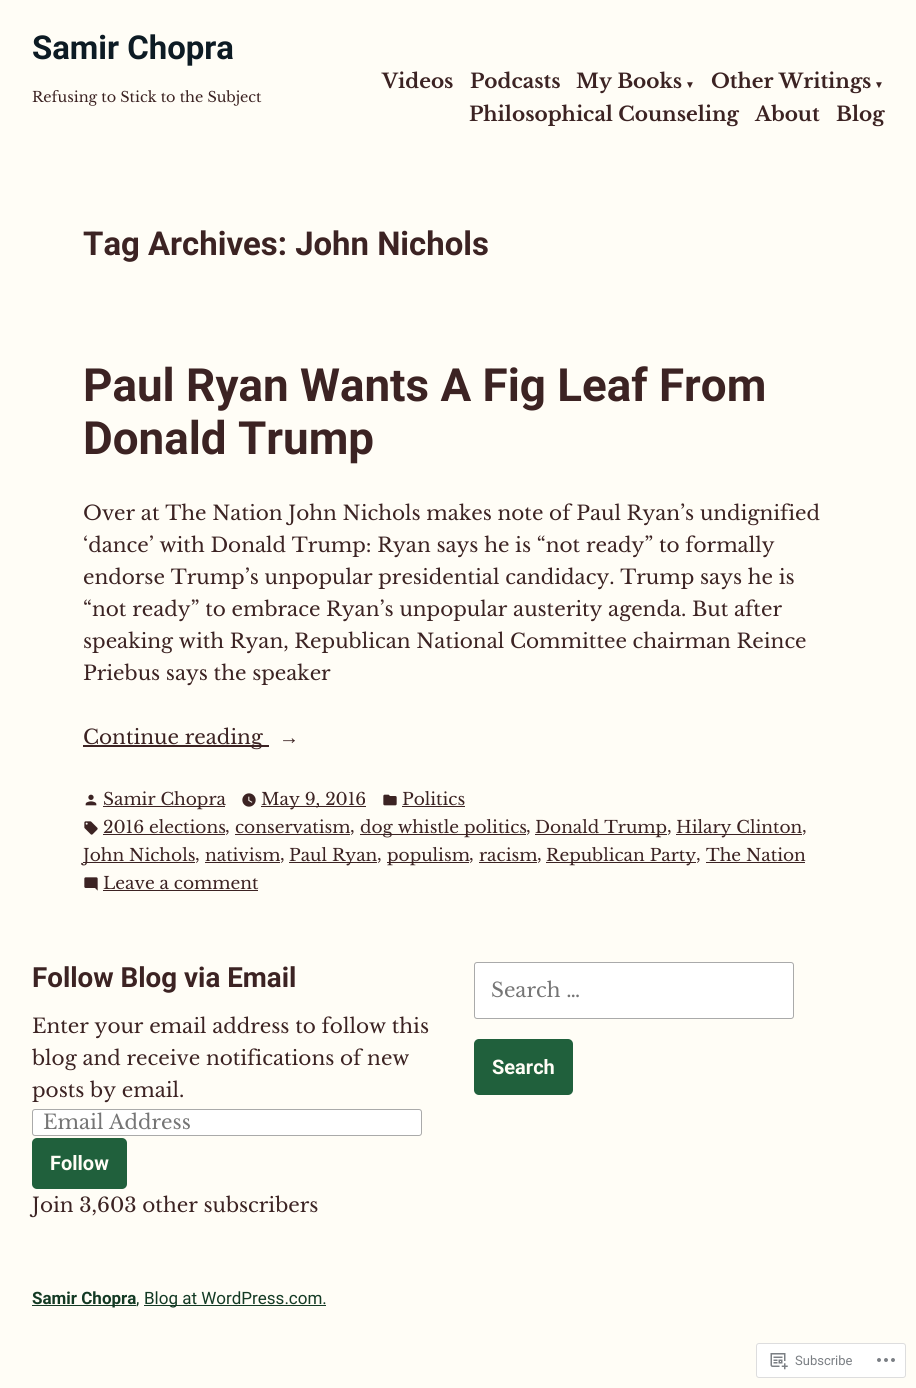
#include <cairo/cairo.h>
#include <math.h>
#include <stddef.h>


static void rounded_rect(cairo_t *cr, double x, double y, double w, double h, double r) {
  cairo_new_sub_path(cr);
  cairo_arc(cr, x + w - r, y + h - r, r, 0, M_PI / 2);
  cairo_arc(cr, x + r, y + h - r, r, M_PI / 2, M_PI);
  cairo_arc(cr, x + r, y + r, r, M_PI, 1.5 * M_PI);
  cairo_arc(cr, x + w - r, y + r, r, 1.5 * M_PI, 2 * M_PI);
  cairo_close_path(cr);
}

static void draw_image(cairo_t *cr, const char *path, double x, double y, double w, double h) {
  cairo_surface_t *image = cairo_image_surface_create_from_png(path);
  cairo_save(cr);
  cairo_set_source_surface(cr, image, x, y);
  cairo_rectangle(cr, x, y, w, h);
  cairo_fill(cr);
  cairo_restore(cr);
  cairo_surface_destroy(image);
}

static void draw(cairo_t *cr) {
  cairo_set_source_rgb(cr, 1, 253 / 255.0, 246 / 255.0);
  cairo_paint(cr);
  cairo_set_source_rgb(cr, 60 / 255.0, 35 / 255.0, 35 / 255.0);
  cairo_rectangle(cr, 83, 745, 186, 2);
  cairo_fill(cr);
  draw_image(cr, "images/1.png", 85, 794, 12, 12);
  cairo_rectangle(cr, 103, 806, 122, 1);
  cairo_fill(cr);
  draw_image(cr, "images/2.png", 242, 793, 14, 14);
  cairo_rectangle(cr, 261, 806, 105, 1);
  cairo_fill(cr);
  draw_image(cr, "images/3.png", 383, 794, 14, 12);
  cairo_rectangle(cr, 402, 806, 63, 1);
  cairo_fill(cr);
  draw_image(cr, "images/4.png", 84, 821, 14, 14);
  cairo_rectangle(cr, 103, 834, 122, 1);
  cairo_fill(cr);
  cairo_rectangle(cr, 235, 834, 115, 1);
  cairo_fill(cr);
  cairo_rectangle(cr, 360, 834, 166, 1);
  cairo_fill(cr);
  cairo_rectangle(cr, 535, 834, 132, 1);
  cairo_fill(cr);
  cairo_rectangle(cr, 676, 834, 126, 1);
  cairo_fill(cr);
  cairo_rectangle(cr, 83, 862, 112, 1);
  cairo_fill(cr);
  cairo_rectangle(cr, 205, 862, 75, 1);
  cairo_fill(cr);
  cairo_rectangle(cr, 289, 862, 88, 1);
  cairo_fill(cr);
  cairo_rectangle(cr, 387, 862, 82, 1);
  cairo_fill(cr);
  cairo_rectangle(cr, 479, 862, 58, 1);
  cairo_fill(cr);
  cairo_rectangle(cr, 546, 862, 150, 1);
  cairo_fill(cr);
  cairo_rectangle(cr, 706, 862, 99, 1);
  cairo_fill(cr);
  draw_image(cr, "images/5.png", 84, 877, 14, 14);
  cairo_rectangle(cr, 103, 890, 155, 1);
  cairo_fill(cr);
  cairo_set_source_rgb(cr, 1, 1, 1);
  rounded_rect(cr, 32.5, 1109.5, 389, 26, 2.5);
  cairo_fill_preserve(cr);
  cairo_set_source_rgb(cr, 170 / 255.0, 170 / 255.0, 170 / 255.0);
  cairo_set_line_width(cr, 1);
  cairo_stroke(cr);
  cairo_set_source_rgb(cr, 32 / 255.0, 96 / 255.0, 60 / 255.0);
  rounded_rect(cr, 32, 1138, 95, 51, 5);
  cairo_fill(cr);
  cairo_set_source_rgb(cr, 1, 1, 1);
  rounded_rect(cr, 474.5, 962.5, 319, 56, 2.5);
  cairo_fill_preserve(cr);
  cairo_set_source_rgb(cr, 170 / 255.0, 170 / 255.0, 170 / 255.0);
  cairo_stroke(cr);
  cairo_set_source_rgb(cr, 32 / 255.0, 96 / 255.0, 60 / 255.0);
  rounded_rect(cr, 474, 1039, 99, 56, 5);
  cairo_fill(cr);
  cairo_set_source_rgb(cr, 19 / 255.0, 58 / 255.0, 36 / 255.0);
  cairo_rectangle(cr, 32, 1305, 104, 1);
  cairo_fill(cr);
  cairo_rectangle(cr, 144, 1305, 182, 1);
  cairo_fill(cr);
  cairo_set_source_rgb(cr, 1, 1, 1);
  rounded_rect(cr, 756.5, 1343.5, 149, 34, 2.5);
  cairo_fill_preserve(cr);
  cairo_set_source_rgb(cr, 221 / 255.0, 221 / 255.0, 222 / 255.0);
  cairo_stroke(cr);
  draw_image(cr, "images/6.png", 770, 1353, 18, 17);
  draw_image(cr, "images/7.png", 877, 1358, 18, 4);
  cairo_select_font_face(cr, "Roboto", CAIRO_FONT_SLANT_NORMAL, CAIRO_FONT_WEIGHT_BOLD);
  cairo_set_font_size(cr, 32.9);
  cairo_set_source_rgb(cr, 13 / 255.0, 27 / 255.0, 36 / 255.0);
  cairo_move_to(cr, 32, 59);
  cairo_show_text(cr, "Samir Chopra");
  cairo_select_font_face(cr, "Libre Baskerville", CAIRO_FONT_SLANT_NORMAL, CAIRO_FONT_WEIGHT_NORMAL);
  cairo_set_font_size(cr, 14.4);
  cairo_set_source_rgb(cr, 60 / 255.0, 35 / 255.0, 35 / 255.0);
  cairo_move_to(cr, 32, 102);
  cairo_show_text(cr, "Refusing to Stick to the Subject");
  cairo_select_font_face(cr, "Libre Baskerville", CAIRO_FONT_SLANT_NORMAL, CAIRO_FONT_WEIGHT_BOLD);
  cairo_set_font_size(cr, 20);
  cairo_move_to(cr, 382, 88);
  cairo_show_text(cr, "Videos");
  cairo_move_to(cr, 470, 88);
  cairo_show_text(cr, "Podcasts");
  cairo_move_to(cr, 576, 88);
  cairo_show_text(cr, "My Books");
  cairo_select_font_face(cr, "Liberation Serif", CAIRO_FONT_SLANT_NORMAL, CAIRO_FONT_WEIGHT_BOLD);
  cairo_set_font_size(cr, 10);
  cairo_move_to(cr, 685, 88);
  cairo_show_text(cr, "▼");
  cairo_select_font_face(cr, "Libre Baskerville", CAIRO_FONT_SLANT_NORMAL, CAIRO_FONT_WEIGHT_BOLD);
  cairo_set_font_size(cr, 20);
  cairo_move_to(cr, 711, 88);
  cairo_show_text(cr, "Other Writings");
  cairo_select_font_face(cr, "Liberation Serif", CAIRO_FONT_SLANT_NORMAL, CAIRO_FONT_WEIGHT_BOLD);
  cairo_set_font_size(cr, 10);
  cairo_move_to(cr, 874, 88);
  cairo_show_text(cr, "▼");
  cairo_select_font_face(cr, "Libre Baskerville", CAIRO_FONT_SLANT_NORMAL, CAIRO_FONT_WEIGHT_BOLD);
  cairo_set_font_size(cr, 20);
  cairo_move_to(cr, 469, 121);
  cairo_show_text(cr, "Philosophical Counseling");
  cairo_move_to(cr, 755, 121);
  cairo_show_text(cr, "About");
  cairo_move_to(cr, 836, 121);
  cairo_show_text(cr, "Blog");
  cairo_select_font_face(cr, "Roboto", CAIRO_FONT_SLANT_NORMAL, CAIRO_FONT_WEIGHT_BOLD);
  cairo_set_font_size(cr, 32.9);
  cairo_move_to(cr, 83, 255);
  cairo_show_text(cr, "Tag Archives: John Nichols");
  cairo_set_font_size(cr, 45.75);
  cairo_move_to(cr, 83, 401);
  cairo_show_text(cr, "Paul Ryan Wants A Fig Leaf From");
  cairo_move_to(cr, 83, 454);
  cairo_show_text(cr, "Donald Trump");
  cairo_select_font_face(cr, "Libre Baskerville", CAIRO_FONT_SLANT_NORMAL, CAIRO_FONT_WEIGHT_NORMAL);
  cairo_set_font_size(cr, 20);
  cairo_move_to(cr, 83, 520);
  cairo_show_text(cr, "Over at The Nation John Nichols makes note of Paul Ryan’s undignified");
  cairo_move_to(cr, 83, 552);
  cairo_show_text(cr, "‘dance’ with Donald Trump: Ryan says he is “not ready” to formally");
  cairo_move_to(cr, 83, 584);
  cairo_show_text(cr, "endorse Trump’s unpopular presidential candidacy. Trump says he is");
  cairo_move_to(cr, 83, 616);
  cairo_show_text(cr, "“not ready” to embrace Ryan’s unpopular austerity agenda. But after");
  cairo_move_to(cr, 83, 648);
  cairo_show_text(cr, "speaking with Ryan, Republican National Committee chairman Reince");
  cairo_move_to(cr, 83, 680);
  cairo_show_text(cr, "Priebus says the speaker");
  cairo_move_to(cr, 83, 744);
  cairo_show_text(cr, "Continue reading");
  cairo_select_font_face(cr, "Liberation Serif", CAIRO_FONT_SLANT_NORMAL, CAIRO_FONT_WEIGHT_NORMAL);
  cairo_move_to(cr, 279, 744);
  cairo_show_text(cr, "→");
  cairo_select_font_face(cr, "Libre Baskerville", CAIRO_FONT_SLANT_NORMAL, CAIRO_FONT_WEIGHT_NORMAL);
  cairo_set_font_size(cr, 17);
  cairo_move_to(cr, 103, 805);
  cairo_show_text(cr, "Samir Chopra");
  cairo_move_to(cr, 261, 805);
  cairo_show_text(cr, "May 9, 2016");
  cairo_move_to(cr, 402, 805);
  cairo_show_text(cr, "Politics");
  cairo_move_to(cr, 103, 833);
  cairo_show_text(cr, "2016 elections");
  cairo_move_to(cr, 225, 832);
  cairo_show_text(cr, ",");
  cairo_move_to(cr, 235, 833);
  cairo_show_text(cr, "conservatism");
  cairo_move_to(cr, 350, 832);
  cairo_show_text(cr, ",");
  cairo_move_to(cr, 360, 833);
  cairo_show_text(cr, "dog whistle politics");
  cairo_move_to(cr, 526, 832);
  cairo_show_text(cr, ",");
  cairo_move_to(cr, 535, 833);
  cairo_show_text(cr, "Donald Trump");
  cairo_move_to(cr, 667, 832);
  cairo_show_text(cr, ",");
  cairo_move_to(cr, 676, 833);
  cairo_show_text(cr, "Hilary Clinton");
  cairo_move_to(cr, 802, 832);
  cairo_show_text(cr, ",");
  cairo_move_to(cr, 83, 861);
  cairo_show_text(cr, "John Nichols");
  cairo_move_to(cr, 195, 860);
  cairo_show_text(cr, ",");
  cairo_move_to(cr, 205, 861);
  cairo_show_text(cr, "nativism");
  cairo_move_to(cr, 280, 860);
  cairo_show_text(cr, ",");
  cairo_move_to(cr, 289, 861);
  cairo_show_text(cr, "Paul Ryan");
  cairo_move_to(cr, 377, 860);
  cairo_show_text(cr, ",");
  cairo_move_to(cr, 387, 861);
  cairo_show_text(cr, "populism");
  cairo_move_to(cr, 469, 860);
  cairo_show_text(cr, ",");
  cairo_move_to(cr, 479, 861);
  cairo_show_text(cr, "racism");
  cairo_move_to(cr, 537, 860);
  cairo_show_text(cr, ",");
  cairo_move_to(cr, 546, 861);
  cairo_show_text(cr, "Republican Party");
  cairo_move_to(cr, 696, 860);
  cairo_show_text(cr, ",");
  cairo_move_to(cr, 706, 861);
  cairo_show_text(cr, "The Nation");
  cairo_move_to(cr, 103, 889);
  cairo_show_text(cr, "Leave a comment");
  cairo_select_font_face(cr, "Roboto", CAIRO_FONT_SLANT_NORMAL, CAIRO_FONT_WEIGHT_BOLD);
  cairo_set_font_size(cr, 27.75);
  cairo_move_to(cr, 32, 987);
  cairo_show_text(cr, "Follow Blog via Email");
  cairo_select_font_face(cr, "Libre Baskerville", CAIRO_FONT_SLANT_NORMAL, CAIRO_FONT_WEIGHT_NORMAL);
  cairo_set_font_size(cr, 20);
  cairo_move_to(cr, 32, 1033);
  cairo_show_text(cr, "Enter your email address to follow this");
  cairo_move_to(cr, 32, 1065);
  cairo_show_text(cr, "blog and receive notifications of new");
  cairo_move_to(cr, 32, 1097);
  cairo_show_text(cr, "posts by email.");
  cairo_set_source_rgb(cr, 117 / 255.0, 117 / 255.0, 117 / 255.0);
  cairo_move_to(cr, 43, 1129);
  cairo_show_text(cr, "Email Address");
  cairo_select_font_face(cr, "Roboto", CAIRO_FONT_SLANT_NORMAL, CAIRO_FONT_WEIGHT_BOLD);
  cairo_set_source_rgb(cr, 1, 253 / 255.0, 246 / 255.0);
  cairo_move_to(cr, 50, 1170);
  cairo_show_text(cr, "Follow");
  cairo_select_font_face(cr, "Libre Baskerville", CAIRO_FONT_SLANT_NORMAL, CAIRO_FONT_WEIGHT_NORMAL);
  cairo_set_source_rgb(cr, 60 / 255.0, 35 / 255.0, 35 / 255.0);
  cairo_move_to(cr, 32, 1212);
  cairo_show_text(cr, "Join 3,603 other subscribers");
  cairo_set_source_rgb(cr, 117 / 255.0, 117 / 255.0, 117 / 255.0);
  cairo_move_to(cr, 491, 997);
  cairo_show_text(cr, "Search …");
  cairo_select_font_face(cr, "Roboto", CAIRO_FONT_SLANT_NORMAL, CAIRO_FONT_WEIGHT_BOLD);
  cairo_set_source_rgb(cr, 1, 253 / 255.0, 246 / 255.0);
  cairo_move_to(cr, 492, 1074);
  cairo_show_text(cr, "Search");
  cairo_set_font_size(cr, 17);
  cairo_set_source_rgb(cr, 19 / 255.0, 58 / 255.0, 36 / 255.0);
  cairo_move_to(cr, 32, 1304);
  cairo_show_text(cr, "Samir Chopra");
  cairo_select_font_face(cr, "Roboto", CAIRO_FONT_SLANT_NORMAL, CAIRO_FONT_WEIGHT_NORMAL);
  cairo_move_to(cr, 136, 1304);
  cairo_show_text(cr, ",");
  cairo_move_to(cr, 144, 1304);
  cairo_show_text(cr, "Blog at WordPress.com.");
  cairo_set_font_size(cr, 13);
  cairo_set_source_rgb(cr, 123 / 255.0, 127 / 255.0, 132 / 255.0);
  cairo_move_to(cr, 795, 1365);
  cairo_show_text(cr, "Subscribe");
}

int main(void) {
  cairo_surface_t *surface = cairo_image_surface_create(CAIRO_FORMAT_RGB24, 916, 1388);
  cairo_t *cr = cairo_create(surface);
  cairo_font_options_t *options = cairo_font_options_create();
  cairo_font_options_set_hint_metrics(options, CAIRO_HINT_METRICS_OFF);
  cairo_font_options_set_hint_style(options, CAIRO_HINT_STYLE_NONE);
  cairo_set_font_options(cr, options);
  cairo_set_miter_limit(cr, 4);
  draw(cr);
  cairo_surface_write_to_png(surface, "out.png");
  cairo_font_options_destroy(options);
  cairo_destroy(cr);
  cairo_surface_destroy(surface);
  return 0;
}
